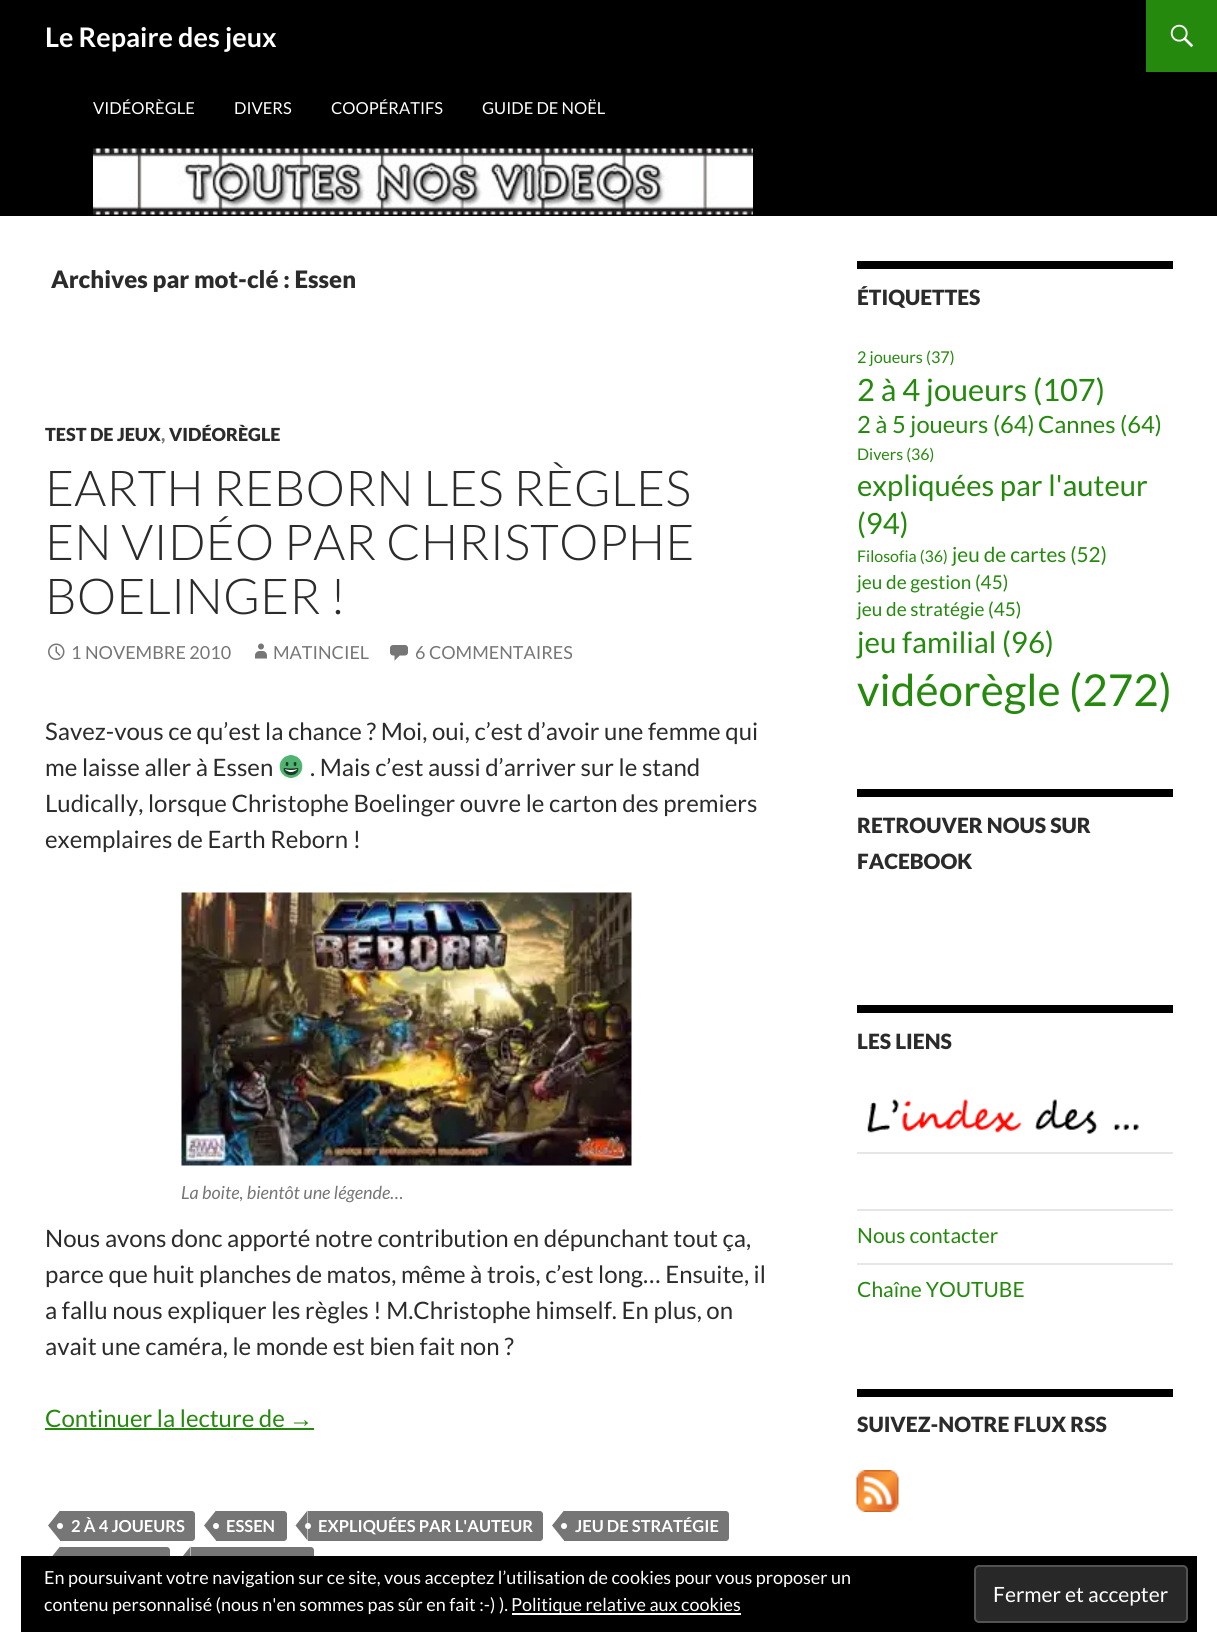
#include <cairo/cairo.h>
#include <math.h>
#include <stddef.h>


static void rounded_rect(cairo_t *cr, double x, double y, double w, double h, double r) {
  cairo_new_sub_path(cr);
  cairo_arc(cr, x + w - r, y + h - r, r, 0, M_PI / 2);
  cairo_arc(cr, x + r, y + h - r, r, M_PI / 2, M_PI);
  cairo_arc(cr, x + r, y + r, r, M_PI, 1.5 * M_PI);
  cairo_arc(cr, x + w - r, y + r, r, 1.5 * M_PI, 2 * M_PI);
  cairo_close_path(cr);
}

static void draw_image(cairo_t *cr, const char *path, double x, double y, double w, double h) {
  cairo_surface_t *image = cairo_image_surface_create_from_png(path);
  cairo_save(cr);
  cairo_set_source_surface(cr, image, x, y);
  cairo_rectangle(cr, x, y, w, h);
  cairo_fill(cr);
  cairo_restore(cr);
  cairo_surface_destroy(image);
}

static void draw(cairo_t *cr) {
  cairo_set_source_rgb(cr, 1, 1, 1);
  cairo_paint(cr);
  cairo_set_source_rgb(cr, 0, 0, 0);
  cairo_rectangle(cr, 0, 0, 1217, 216);
  cairo_fill(cr);
  cairo_set_source_rgb(cr, 36 / 255.0, 137 / 255.0, 13 / 255.0);
  cairo_rectangle(cr, 1146, 0, 71, 72);
  cairo_fill(cr);
  draw_image(cr, "images/1.png", 1170, 24, 24, 24);
  draw_image(cr, "images/2.png", 93, 148, 660, 67);
  draw_image(cr, "images/3.png", 48, 643, 17, 17);
  draw_image(cr, "images/4.png", 255, 643, 12, 16);
  draw_image(cr, "images/5.png", 390, 645, 18, 16);
  draw_image(cr, "images/6.png", 279, 755, 24, 23);
  draw_image(cr, "images/7.png", 181, 892, 451, 274);
  cairo_rectangle(cr, 45, 1428, 269, 2);
  cairo_fill(cr);
  cairo_set_source_rgb(cr, 118 / 255.0, 118 / 255.0, 118 / 255.0);
  cairo_new_path(cr);
  cairo_move_to(cr, 60, 1511);
  cairo_line_to(cr, 192, 1511);
  cairo_curve_to(cr, 193.5, 1511, 195, 1512.5, 195, 1514);
  cairo_line_to(cr, 195, 1538);
  cairo_curve_to(cr, 195, 1539.5, 193.5, 1541, 192, 1541);
  cairo_line_to(cr, 60, 1541);
  cairo_close_path(cr);
  cairo_fill(cr);
  cairo_new_path(cr);
  cairo_move_to(cr, 60, 1510.5);
  cairo_line_to(cr, 60, 1540.5);
  cairo_line_to(cr, 48, 1525.5);
  cairo_close_path(cr);
  cairo_fill(cr);
  cairo_set_source_rgb(cr, 1, 1, 1);
  cairo_arc(cr, 60, 1526, 3, 0, 2 * M_PI);
  cairo_fill(cr);
  cairo_set_source_rgb(cr, 118 / 255.0, 118 / 255.0, 118 / 255.0);
  cairo_new_path(cr);
  cairo_move_to(cr, 216, 1511);
  cairo_line_to(cr, 284, 1511);
  cairo_curve_to(cr, 285.5, 1511, 287, 1512.5, 287, 1514);
  cairo_line_to(cr, 287, 1538);
  cairo_curve_to(cr, 287, 1539.5, 285.5, 1541, 284, 1541);
  cairo_line_to(cr, 216, 1541);
  cairo_close_path(cr);
  cairo_fill(cr);
  cairo_new_path(cr);
  cairo_move_to(cr, 216, 1510.5);
  cairo_line_to(cr, 216, 1540.5);
  cairo_line_to(cr, 204, 1525.5);
  cairo_close_path(cr);
  cairo_fill(cr);
  cairo_set_source_rgb(cr, 1, 1, 1);
  cairo_arc(cr, 216, 1526, 3, 0, 2 * M_PI);
  cairo_fill(cr);
  cairo_set_source_rgb(cr, 118 / 255.0, 118 / 255.0, 118 / 255.0);
  cairo_new_path(cr);
  cairo_move_to(cr, 308, 1511);
  cairo_line_to(cr, 540, 1511);
  cairo_curve_to(cr, 541.5, 1511, 543, 1512.5, 543, 1514);
  cairo_line_to(cr, 543, 1538);
  cairo_curve_to(cr, 543, 1539.5, 541.5, 1541, 540, 1541);
  cairo_line_to(cr, 308, 1541);
  cairo_close_path(cr);
  cairo_fill(cr);
  cairo_new_path(cr);
  cairo_move_to(cr, 307.5, 1510.5);
  cairo_line_to(cr, 307.5, 1540.5);
  cairo_line_to(cr, 295.5, 1525.5);
  cairo_close_path(cr);
  cairo_fill(cr);
  cairo_set_source_rgb(cr, 1, 1, 1);
  cairo_arc(cr, 308, 1526, 3, 0, 2 * M_PI);
  cairo_fill(cr);
  cairo_set_source_rgb(cr, 118 / 255.0, 118 / 255.0, 118 / 255.0);
  cairo_new_path(cr);
  cairo_move_to(cr, 564, 1511);
  cairo_line_to(cr, 726, 1511);
  cairo_curve_to(cr, 727.5, 1511, 729, 1512.5, 729, 1514);
  cairo_line_to(cr, 729, 1538);
  cairo_curve_to(cr, 729, 1539.5, 727.5, 1541, 726, 1541);
  cairo_line_to(cr, 564, 1541);
  cairo_close_path(cr);
  cairo_fill(cr);
  cairo_new_path(cr);
  cairo_move_to(cr, 564, 1510.5);
  cairo_line_to(cr, 564, 1540.5);
  cairo_line_to(cr, 552, 1525.5);
  cairo_close_path(cr);
  cairo_fill(cr);
  cairo_set_source_rgb(cr, 1, 1, 1);
  cairo_arc(cr, 564, 1526, 3, 0, 2 * M_PI);
  cairo_fill(cr);
  cairo_set_source_rgb(cr, 118 / 255.0, 118 / 255.0, 118 / 255.0);
  cairo_new_path(cr);
  cairo_move_to(cr, 60, 1547);
  cairo_line_to(cr, 167, 1547);
  cairo_curve_to(cr, 168.5, 1547, 170, 1548.5, 170, 1550);
  cairo_line_to(cr, 170, 1574);
  cairo_curve_to(cr, 170, 1575.5, 168.5, 1577, 167, 1577);
  cairo_line_to(cr, 60, 1577);
  cairo_close_path(cr);
  cairo_fill(cr);
  cairo_new_path(cr);
  cairo_move_to(cr, 60, 1546.5);
  cairo_line_to(cr, 60, 1576.5);
  cairo_line_to(cr, 48, 1561.5);
  cairo_close_path(cr);
  cairo_fill(cr);
  cairo_new_path(cr);
  cairo_move_to(cr, 191, 1547);
  cairo_line_to(cr, 311, 1547);
  cairo_curve_to(cr, 312.5, 1547, 314, 1548.5, 314, 1550);
  cairo_line_to(cr, 314, 1574);
  cairo_curve_to(cr, 314, 1575.5, 312.5, 1577, 311, 1577);
  cairo_line_to(cr, 191, 1577);
  cairo_close_path(cr);
  cairo_fill(cr);
  cairo_new_path(cr);
  cairo_move_to(cr, 190.5, 1546.5);
  cairo_line_to(cr, 190.5, 1576.5);
  cairo_line_to(cr, 178.5, 1561.5);
  cairo_close_path(cr);
  cairo_fill(cr);
  cairo_set_source_rgb(cr, 0, 0, 0);
  cairo_rectangle(cr, 857, 261, 316, 8);
  cairo_fill(cr);
  cairo_rectangle(cr, 857, 789, 316, 8);
  cairo_fill(cr);
  cairo_rectangle(cr, 857, 1005, 316, 8);
  cairo_fill(cr);
  draw_image(cr, "images/8.png", 867, 1099, 272, 35);
  cairo_set_source_rgb(cr, 230 / 255.0, 230 / 255.0, 230 / 255.0);
  cairo_rectangle(cr, 857, 1152, 316, 2);
  cairo_fill(cr);
  cairo_rectangle(cr, 857, 1209, 316, 2);
  cairo_fill(cr);
  cairo_rectangle(cr, 857, 1263, 316, 2);
  cairo_fill(cr);
  cairo_set_source_rgb(cr, 0, 0, 0);
  cairo_rectangle(cr, 857, 1389, 316, 8);
  cairo_fill(cr);
  draw_image(cr, "images/9.png", 856, 1470, 43, 42);
  cairo_rectangle(cr, 21, 1556, 1176, 76);
  cairo_fill(cr);
  cairo_set_source_rgb(cr, 1, 1, 1);
  cairo_rectangle(cr, 512, 1613, 229, 2);
  cairo_fill(cr);
  cairo_set_source_rgb(cr, 40 / 255.0, 40 / 255.0, 40 / 255.0);
  rounded_rect(cr, 975, 1566, 212, 56, 4);
  cairo_fill_preserve(cr);
  cairo_set_source_rgb(cr, 83 / 255.0, 83 / 255.0, 83 / 255.0);
  cairo_stroke(cr);
  cairo_select_font_face(cr, "Lato", CAIRO_FONT_SLANT_NORMAL, CAIRO_FONT_WEIGHT_BOLD);
  cairo_set_font_size(cr, 27);
  cairo_set_source_rgb(cr, 1, 1, 1);
  cairo_move_to(cr, 45, 47);
  cairo_show_text(cr, "Le Repaire des jeux");
  cairo_select_font_face(cr, "Lato", CAIRO_FONT_SLANT_NORMAL, CAIRO_FONT_WEIGHT_NORMAL);
  cairo_set_font_size(cr, 16.5);
  cairo_move_to(cr, 93, 114);
  cairo_show_text(cr, "VIDÉORÈGLE");
  cairo_move_to(cr, 234, 114);
  cairo_show_text(cr, "DIVERS");
  cairo_move_to(cr, 331, 114);
  cairo_show_text(cr, "COOPÉRATIFS");
  cairo_move_to(cr, 482, 114);
  cairo_show_text(cr, "GUIDE DE NOËL");
  cairo_select_font_face(cr, "Lato Black", CAIRO_FONT_SLANT_NORMAL, CAIRO_FONT_WEIGHT_NORMAL);
  cairo_set_font_size(cr, 24);
  cairo_set_source_rgb(cr, 43 / 255.0, 43 / 255.0, 43 / 255.0);
  cairo_move_to(cr, 51, 288);
  cairo_show_text(cr, "Archives par mot-clé : Essen");
  cairo_set_font_size(cr, 18);
  cairo_move_to(cr, 45, 441);
  cairo_show_text(cr, "TEST DE JEUX");
  cairo_set_source_rgb(cr, 118 / 255.0, 118 / 255.0, 118 / 255.0);
  cairo_move_to(cr, 161, 441);
  cairo_show_text(cr, ",");
  cairo_set_source_rgb(cr, 43 / 255.0, 43 / 255.0, 43 / 255.0);
  cairo_move_to(cr, 169, 441);
  cairo_show_text(cr, "VIDÉORÈGLE");
  cairo_select_font_face(cr, "Lato Light", CAIRO_FONT_SLANT_NORMAL, CAIRO_FONT_WEIGHT_NORMAL);
  cairo_set_font_size(cr, 49.5);
  cairo_move_to(cr, 45, 506);
  cairo_show_text(cr, "EARTH REBORN LES RÈGLES");
  cairo_move_to(cr, 45, 560);
  cairo_show_text(cr, "EN VIDÉO PAR CHRISTOPHE");
  cairo_move_to(cr, 45, 614);
  cairo_show_text(cr, "BOELINGER !");
  cairo_select_font_face(cr, "Lato", CAIRO_FONT_SLANT_NORMAL, CAIRO_FONT_WEIGHT_NORMAL);
  cairo_set_font_size(cr, 18);
  cairo_set_source_rgb(cr, 118 / 255.0, 118 / 255.0, 118 / 255.0);
  cairo_move_to(cr, 71, 659);
  cairo_show_text(cr, "1 NOVEMBRE 2010");
  cairo_move_to(cr, 273, 659);
  cairo_show_text(cr, "MATINCIEL");
  cairo_move_to(cr, 415, 659);
  cairo_show_text(cr, "6 COMMENTAIRES");
  cairo_set_font_size(cr, 24);
  cairo_set_source_rgb(cr, 43 / 255.0, 43 / 255.0, 43 / 255.0);
  cairo_move_to(cr, 45, 740);
  cairo_show_text(cr, "Savez-vous ce qu’est la chance ? Moi, oui, c’est d’avoir une femme qui");
  cairo_move_to(cr, 45, 776);
  cairo_show_text(cr, "me laisse aller à Essen");
  cairo_move_to(cr, 310, 776);
  cairo_show_text(cr, ". Mais c’est aussi d’arriver sur le stand");
  cairo_move_to(cr, 45, 812);
  cairo_show_text(cr, "Ludically, lorsque Christophe Boelinger ouvre le carton des premiers");
  cairo_move_to(cr, 45, 848);
  cairo_show_text(cr, "exemplaires de Earth Reborn !");
  cairo_select_font_face(cr, "Lato", CAIRO_FONT_SLANT_ITALIC, CAIRO_FONT_WEIGHT_NORMAL);
  cairo_set_font_size(cr, 18);
  cairo_set_source_rgb(cr, 118 / 255.0, 118 / 255.0, 118 / 255.0);
  cairo_move_to(cr, 181, 1199);
  cairo_show_text(cr, "La boite, bientôt une légende…");
  cairo_select_font_face(cr, "Lato", CAIRO_FONT_SLANT_NORMAL, CAIRO_FONT_WEIGHT_NORMAL);
  cairo_set_font_size(cr, 24);
  cairo_set_source_rgb(cr, 43 / 255.0, 43 / 255.0, 43 / 255.0);
  cairo_move_to(cr, 45, 1247);
  cairo_show_text(cr, "Nous avons donc apporté notre contribution en dépunchant tout ça,");
  cairo_move_to(cr, 45, 1283);
  cairo_show_text(cr, "parce que huit planches de matos, même à trois, c’est long… Ensuite, il");
  cairo_move_to(cr, 45, 1319);
  cairo_show_text(cr, "a fallu nous expliquer les règles ! M.Christophe himself. En plus, on");
  cairo_move_to(cr, 45, 1355);
  cairo_show_text(cr, "avait une caméra, le monde est bien fait non ?");
  cairo_set_source_rgb(cr, 36 / 255.0, 137 / 255.0, 13 / 255.0);
  cairo_move_to(cr, 45, 1427);
  cairo_show_text(cr, "Continuer la lecture de");
  cairo_select_font_face(cr, "Liberation Sans", CAIRO_FONT_SLANT_NORMAL, CAIRO_FONT_WEIGHT_NORMAL);
  cairo_move_to(cr, 289, 1427);
  cairo_show_text(cr, "→");
  cairo_select_font_face(cr, "Lato", CAIRO_FONT_SLANT_NORMAL, CAIRO_FONT_WEIGHT_BOLD);
  cairo_set_font_size(cr, 16.5);
  cairo_set_source_rgb(cr, 1, 1, 1);
  cairo_move_to(cr, 71, 1532);
  cairo_show_text(cr, "2 À 4 JOUEURS");
  cairo_move_to(cr, 226, 1532);
  cairo_show_text(cr, "ESSEN");
  cairo_move_to(cr, 318, 1532);
  cairo_show_text(cr, "EXPLIQUÉES PAR L'AUTEUR");
  cairo_move_to(cr, 575, 1532);
  cairo_show_text(cr, "JEU DE STRATÉGIE");
  cairo_select_font_face(cr, "Lato Black", CAIRO_FONT_SLANT_NORMAL, CAIRO_FONT_WEIGHT_NORMAL);
  cairo_set_font_size(cr, 21);
  cairo_set_source_rgb(cr, 43 / 255.0, 43 / 255.0, 43 / 255.0);
  cairo_move_to(cr, 857, 305);
  cairo_show_text(cr, "ÉTIQUETTES");
  cairo_select_font_face(cr, "Lato", CAIRO_FONT_SLANT_NORMAL, CAIRO_FONT_WEIGHT_NORMAL);
  cairo_set_font_size(cr, 16.25);
  cairo_set_source_rgb(cr, 36 / 255.0, 137 / 255.0, 13 / 255.0);
  cairo_move_to(cr, 857, 363);
  cairo_show_text(cr, "2 joueurs (37)");
  cairo_set_font_size(cr, 30.75);
  cairo_move_to(cr, 857, 401);
  cairo_show_text(cr, "2 à 4 joueurs (107)");
  cairo_set_font_size(cr, 23.75);
  cairo_move_to(cr, 857, 433);
  cairo_show_text(cr, "2 à 5 joueurs (64)");
  cairo_move_to(cr, 1038, 433);
  cairo_show_text(cr, "Cannes (64)");
  cairo_set_font_size(cr, 16);
  cairo_move_to(cr, 857, 460);
  cairo_show_text(cr, "Divers (36)");
  cairo_set_font_size(cr, 29.25);
  cairo_move_to(cr, 857, 496);
  cairo_show_text(cr, "expliquées par l'auteur");
  cairo_move_to(cr, 857, 534);
  cairo_show_text(cr, "(94)");
  cairo_set_font_size(cr, 16);
  cairo_move_to(cr, 857, 562);
  cairo_show_text(cr, "Filosofia (36)");
  cairo_set_font_size(cr, 20.75);
  cairo_move_to(cr, 952, 562);
  cairo_show_text(cr, "jeu de cartes (52)");
  cairo_set_font_size(cr, 19);
  cairo_move_to(cr, 857, 589);
  cairo_show_text(cr, "jeu de gestion (45)");
  cairo_move_to(cr, 857, 616);
  cairo_show_text(cr, "jeu de stratégie (45)");
  cairo_set_font_size(cr, 29.5);
  cairo_move_to(cr, 857, 653);
  cairo_show_text(cr, "jeu familial (96)");
  cairo_set_font_size(cr, 44);
  cairo_move_to(cr, 857, 706);
  cairo_show_text(cr, "vidéorègle (272)");
  cairo_select_font_face(cr, "Lato Black", CAIRO_FONT_SLANT_NORMAL, CAIRO_FONT_WEIGHT_NORMAL);
  cairo_set_font_size(cr, 21);
  cairo_set_source_rgb(cr, 43 / 255.0, 43 / 255.0, 43 / 255.0);
  cairo_move_to(cr, 857, 833);
  cairo_show_text(cr, "RETROUVER NOUS SUR");
  cairo_move_to(cr, 857, 869);
  cairo_show_text(cr, "FACEBOOK");
  cairo_move_to(cr, 857, 1049);
  cairo_show_text(cr, "LES LIENS");
  cairo_select_font_face(cr, "Lato", CAIRO_FONT_SLANT_NORMAL, CAIRO_FONT_WEIGHT_NORMAL);
  cairo_set_source_rgb(cr, 36 / 255.0, 137 / 255.0, 13 / 255.0);
  cairo_move_to(cr, 857, 1243);
  cairo_show_text(cr, "Nous contacter");
  cairo_move_to(cr, 857, 1297);
  cairo_show_text(cr, "Chaîne YOUTUBE");
  cairo_select_font_face(cr, "Lato Black", CAIRO_FONT_SLANT_NORMAL, CAIRO_FONT_WEIGHT_NORMAL);
  cairo_set_source_rgb(cr, 43 / 255.0, 43 / 255.0, 43 / 255.0);
  cairo_move_to(cr, 857, 1432);
  cairo_show_text(cr, "SUIVEZ-NOTRE FLUX RSS");
  cairo_select_font_face(cr, "Lato", CAIRO_FONT_SLANT_NORMAL, CAIRO_FONT_WEIGHT_NORMAL);
  cairo_set_font_size(cr, 18);
  cairo_set_source_rgb(cr, 1, 1, 1);
  cairo_move_to(cr, 44, 1584);
  cairo_show_text(cr, "En poursuivant votre navigation sur ce site, vous acceptez l’utilisation de cookies pour vous proposer un");
  cairo_move_to(cr, 44, 1611);
  cairo_show_text(cr, "contenu personnalisé (nous n'en sommes pas sûr en fait :-) ).");
  cairo_move_to(cr, 511, 1611);
  cairo_show_text(cr, "Politique relative aux cookies");
  cairo_set_font_size(cr, 21);
  cairo_move_to(cr, 993, 1602);
  cairo_show_text(cr, "Fermer et accepter");
}

int main(void) {
  cairo_surface_t *surface = cairo_image_surface_create(CAIRO_FORMAT_RGB24, 1217, 1652);
  cairo_t *cr = cairo_create(surface);
  cairo_font_options_t *options = cairo_font_options_create();
  cairo_font_options_set_hint_metrics(options, CAIRO_HINT_METRICS_OFF);
  cairo_font_options_set_hint_style(options, CAIRO_HINT_STYLE_NONE);
  cairo_set_font_options(cr, options);
  cairo_set_miter_limit(cr, 4);
  draw(cr);
  cairo_surface_write_to_png(surface, "out.png");
  cairo_font_options_destroy(options);
  cairo_destroy(cr);
  cairo_surface_destroy(surface);
  return 0;
}
